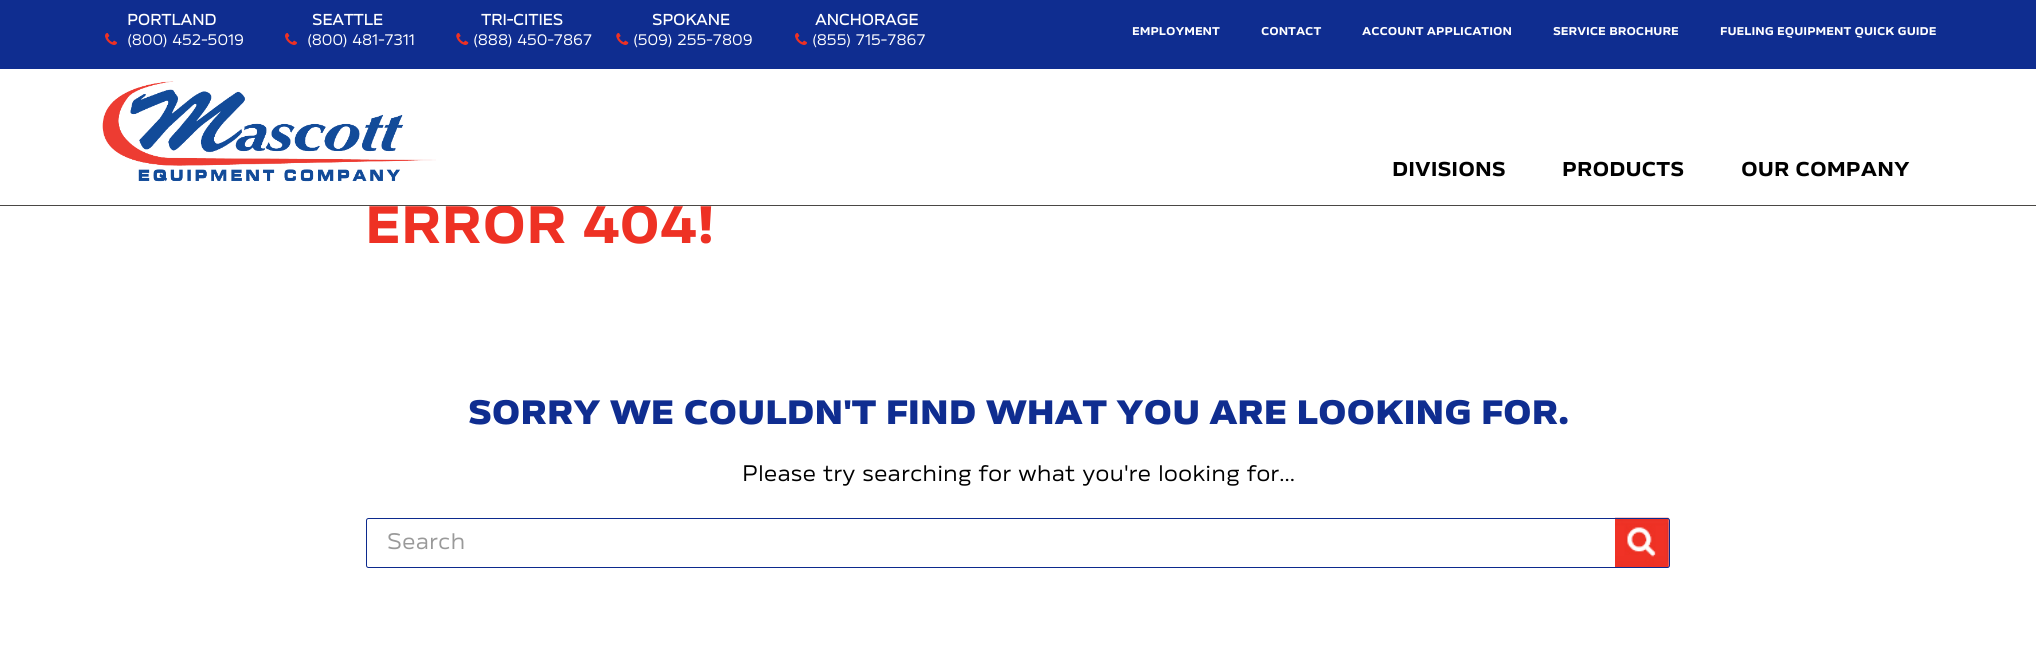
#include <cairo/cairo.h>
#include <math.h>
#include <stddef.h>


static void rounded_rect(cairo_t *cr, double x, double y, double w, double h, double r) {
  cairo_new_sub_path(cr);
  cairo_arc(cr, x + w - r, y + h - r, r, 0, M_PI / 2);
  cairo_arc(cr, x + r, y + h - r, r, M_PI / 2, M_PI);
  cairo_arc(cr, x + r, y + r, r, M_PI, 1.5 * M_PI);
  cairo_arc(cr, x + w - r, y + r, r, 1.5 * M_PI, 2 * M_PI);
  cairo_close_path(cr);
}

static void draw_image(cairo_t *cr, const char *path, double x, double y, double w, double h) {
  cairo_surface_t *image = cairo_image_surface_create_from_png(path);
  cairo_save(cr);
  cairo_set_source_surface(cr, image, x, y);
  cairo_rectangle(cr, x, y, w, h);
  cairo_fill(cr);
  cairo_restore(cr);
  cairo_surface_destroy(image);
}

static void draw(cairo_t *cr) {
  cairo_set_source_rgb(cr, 1, 1, 1);
  cairo_paint(cr);
  cairo_set_source_rgb(cr, 15 / 255.0, 45 / 255.0, 144 / 255.0);
  cairo_rectangle(cr, 0, 0, 2036, 69);
  cairo_fill(cr);
  draw_image(cr, "images/1.png", 105, 33, 12, 12);
  draw_image(cr, "images/1.png", 285, 33, 12, 12);
  draw_image(cr, "images/2.png", 456, 33, 13, 12);
  draw_image(cr, "images/2.png", 616, 33, 13, 12);
  draw_image(cr, "images/1.png", 795, 33, 12, 12);
  draw_image(cr, "images/3.png", 102, 81, 334, 101);
  draw_image(cr, "images/4.png", 1615, 517, 54, 51);
  rounded_rect(cr, 366.5, 518.5, 1303, 49, 2);
  cairo_set_source_rgb(cr, 12 / 255.0, 42 / 255.0, 141 / 255.0);
  cairo_set_line_width(cr, 1);
  cairo_stroke(cr);
  cairo_select_font_face(cr, "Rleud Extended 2", CAIRO_FONT_SLANT_NORMAL, CAIRO_FONT_WEIGHT_BOLD);
  cairo_set_font_size(cr, 15.25);
  cairo_set_source_rgb(cr, 1, 1, 1);
  cairo_move_to(cr, 127, 25);
  cairo_show_text(cr, "PORTLAND");
  cairo_select_font_face(cr, "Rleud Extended", CAIRO_FONT_SLANT_NORMAL, CAIRO_FONT_WEIGHT_NORMAL);
  cairo_move_to(cr, 127, 45);
  cairo_show_text(cr, "(800) 452-5019");
  cairo_select_font_face(cr, "Rleud Extended 2", CAIRO_FONT_SLANT_NORMAL, CAIRO_FONT_WEIGHT_BOLD);
  cairo_move_to(cr, 312, 25);
  cairo_show_text(cr, "SEATTLE");
  cairo_select_font_face(cr, "Rleud Extended", CAIRO_FONT_SLANT_NORMAL, CAIRO_FONT_WEIGHT_NORMAL);
  cairo_move_to(cr, 307, 45);
  cairo_show_text(cr, "(800) 481-7311");
  cairo_select_font_face(cr, "Rleud Extended 2", CAIRO_FONT_SLANT_NORMAL, CAIRO_FONT_WEIGHT_BOLD);
  cairo_move_to(cr, 481, 25);
  cairo_show_text(cr, "TRI-CITIES");
  cairo_select_font_face(cr, "Rleud Extended", CAIRO_FONT_SLANT_NORMAL, CAIRO_FONT_WEIGHT_NORMAL);
  cairo_move_to(cr, 473, 45);
  cairo_show_text(cr, "(888) 450-7867");
  cairo_select_font_face(cr, "Rleud Extended 2", CAIRO_FONT_SLANT_NORMAL, CAIRO_FONT_WEIGHT_BOLD);
  cairo_move_to(cr, 652, 25);
  cairo_show_text(cr, "SPOKANE");
  cairo_select_font_face(cr, "Rleud Extended", CAIRO_FONT_SLANT_NORMAL, CAIRO_FONT_WEIGHT_NORMAL);
  cairo_move_to(cr, 633, 45);
  cairo_show_text(cr, "(509) 255-7809");
  cairo_select_font_face(cr, "Rleud Extended 2", CAIRO_FONT_SLANT_NORMAL, CAIRO_FONT_WEIGHT_BOLD);
  cairo_move_to(cr, 815, 25);
  cairo_show_text(cr, "ANCHORAGE");
  cairo_select_font_face(cr, "Rleud Extended", CAIRO_FONT_SLANT_NORMAL, CAIRO_FONT_WEIGHT_NORMAL);
  cairo_move_to(cr, 812, 45);
  cairo_show_text(cr, "(855) 715-7867");
  cairo_select_font_face(cr, "Rleud Extended", CAIRO_FONT_SLANT_NORMAL, CAIRO_FONT_WEIGHT_BOLD);
  cairo_set_font_size(cr, 11.25);
  cairo_move_to(cr, 1132, 35);
  cairo_show_text(cr, "EMPLOYMENT");
  cairo_move_to(cr, 1261, 35);
  cairo_show_text(cr, "CONTACT");
  cairo_move_to(cr, 1362, 35);
  cairo_show_text(cr, "ACCOUNT APPLICATION");
  cairo_move_to(cr, 1553, 35);
  cairo_show_text(cr, "SERVICE BROCHURE");
  cairo_move_to(cr, 1720, 35);
  cairo_show_text(cr, "FUELING EQUIPMENT QUICK GUIDE");
  cairo_set_font_size(cr, 20);
  cairo_set_source_rgb(cr, 0, 0, 0);
  cairo_move_to(cr, 1392, 176);
  cairo_show_text(cr, "DIVISIONS");
  cairo_move_to(cr, 1562, 176);
  cairo_show_text(cr, "PRODUCTS");
  cairo_move_to(cr, 1741, 176);
  cairo_show_text(cr, "OUR COMPANY");
  cairo_set_font_size(cr, 52.5);
  cairo_set_source_rgb(cr, 238 / 255.0, 49 / 255.0, 36 / 255.0);
  cairo_move_to(cr, 365, 243);
  cairo_show_text(cr, "ERROR 404!");
  cairo_set_source_rgb(cr, 74 / 255.0, 72 / 255.0, 69 / 255.0);
  cairo_rectangle(cr, 0, 205, 2036, 1);
  cairo_fill(cr);
  cairo_select_font_face(cr, "Rleud Extended Black", CAIRO_FONT_SLANT_NORMAL, CAIRO_FONT_WEIGHT_NORMAL);
  cairo_set_font_size(cr, 33.75);
  cairo_set_source_rgb(cr, 15 / 255.0, 45 / 255.0, 144 / 255.0);
  cairo_move_to(cr, 468, 424);
  cairo_show_text(cr, "SORRY WE COULDN'T FIND WHAT YOU ARE LOOKING FOR.");
  cairo_select_font_face(cr, "Rleud Extended", CAIRO_FONT_SLANT_NORMAL, CAIRO_FONT_WEIGHT_NORMAL);
  cairo_set_font_size(cr, 22.5);
  cairo_set_source_rgb(cr, 0, 0, 0);
  cairo_move_to(cr, 742, 481);
  cairo_show_text(cr, "Please try searching for what you're looking for...");
  cairo_set_source_rgb(cr, 153 / 255.0, 153 / 255.0, 153 / 255.0);
  cairo_move_to(cr, 387, 549);
  cairo_show_text(cr, "Search");
}

int main(void) {
  cairo_surface_t *surface = cairo_image_surface_create(CAIRO_FORMAT_RGB24, 2036, 659);
  cairo_t *cr = cairo_create(surface);
  cairo_font_options_t *options = cairo_font_options_create();
  cairo_font_options_set_hint_metrics(options, CAIRO_HINT_METRICS_OFF);
  cairo_font_options_set_hint_style(options, CAIRO_HINT_STYLE_NONE);
  cairo_set_font_options(cr, options);
  cairo_set_miter_limit(cr, 4);
  draw(cr);
  cairo_surface_write_to_png(surface, "out.png");
  cairo_font_options_destroy(options);
  cairo_destroy(cr);
  cairo_surface_destroy(surface);
  return 0;
}
